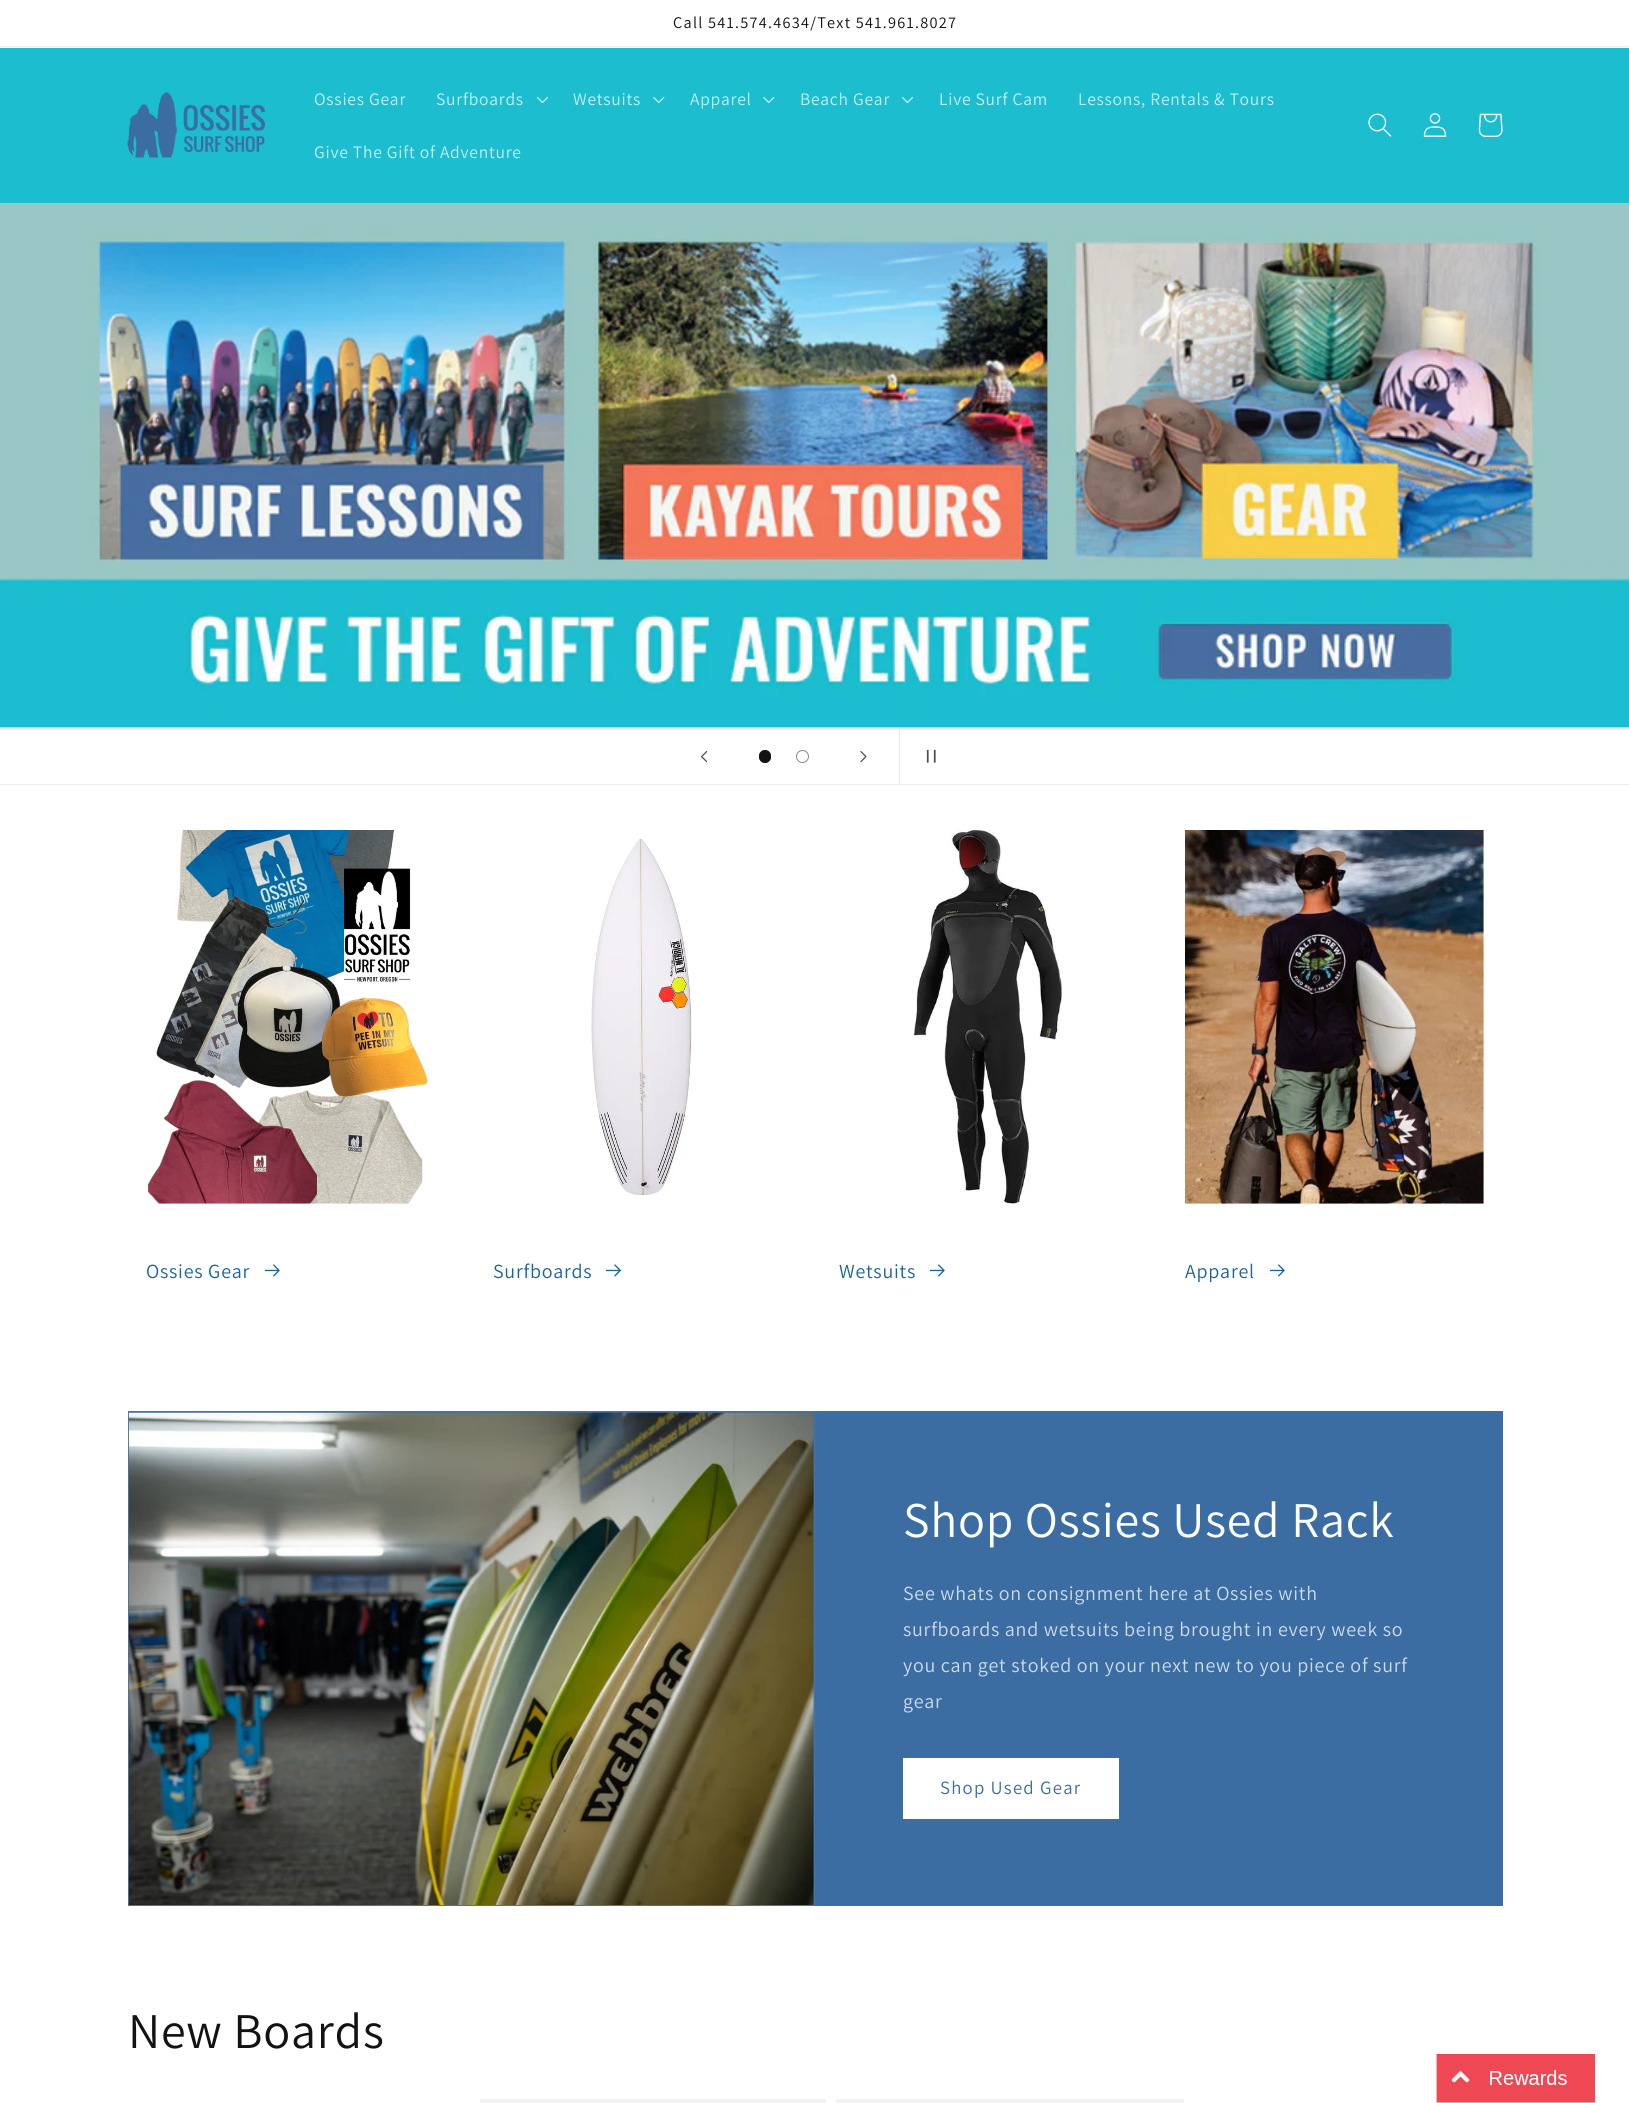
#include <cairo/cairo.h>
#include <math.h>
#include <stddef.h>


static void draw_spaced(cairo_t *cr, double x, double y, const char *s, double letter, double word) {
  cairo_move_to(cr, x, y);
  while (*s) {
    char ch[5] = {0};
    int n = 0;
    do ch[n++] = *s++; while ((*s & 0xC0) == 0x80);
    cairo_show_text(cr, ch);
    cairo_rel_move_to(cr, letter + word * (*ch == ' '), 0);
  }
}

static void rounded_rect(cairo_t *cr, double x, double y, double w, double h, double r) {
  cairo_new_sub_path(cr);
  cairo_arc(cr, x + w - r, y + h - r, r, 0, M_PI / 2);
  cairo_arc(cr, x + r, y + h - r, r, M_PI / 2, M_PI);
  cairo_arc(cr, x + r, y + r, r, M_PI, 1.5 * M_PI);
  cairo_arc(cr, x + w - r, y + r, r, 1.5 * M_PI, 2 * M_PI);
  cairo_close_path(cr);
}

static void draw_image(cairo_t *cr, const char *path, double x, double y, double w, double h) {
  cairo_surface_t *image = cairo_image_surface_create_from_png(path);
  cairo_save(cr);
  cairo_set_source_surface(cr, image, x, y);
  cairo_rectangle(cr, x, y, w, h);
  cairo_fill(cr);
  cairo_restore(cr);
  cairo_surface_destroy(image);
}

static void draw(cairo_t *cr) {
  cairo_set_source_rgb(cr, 1, 1, 1);
  cairo_paint(cr);
  cairo_set_source_rgb(cr, 236 / 255.0, 236 / 255.0, 236 / 255.0);
  cairo_rectangle(cr, 0, 46, 1629, 1);
  cairo_fill(cr);
  cairo_set_source_rgb(cr, 28 / 255.0, 189 / 255.0, 206 / 255.0);
  cairo_rectangle(cr, 0, 48, 1629, 155);
  cairo_fill(cr);
  draw_image(cr, "images/1.png", 127, 92, 138, 66);
  draw_image(cr, "images/2.png", 536, 96, 13, 8);
  draw_image(cr, "images/3.png", 653, 96, 12, 8);
  draw_image(cr, "images/3.png", 763, 96, 12, 8);
  draw_image(cr, "images/2.png", 901, 96, 13, 8);
  draw_image(cr, "images/4.png", 1368, 113, 24, 24);
  draw_image(cr, "images/5.png", 1423, 113, 24, 24);
  draw_image(cr, "images/6.png", 1478, 113, 25, 24);
  cairo_set_source_rgb(cr, 232 / 255.0, 232 / 255.0, 232 / 255.0);
  cairo_rectangle(cr, 0, 727, 1629, 1);
  cairo_fill(cr);
  draw_image(cr, "images/7.png", 0, 203, 1629, 525);
  cairo_set_source_rgb(cr, 236 / 255.0, 236 / 255.0, 236 / 255.0);
  cairo_rectangle(cr, 0, 728, 1629, 1);
  cairo_fill(cr);
  cairo_rectangle(cr, 0, 784, 1629, 1);
  cairo_fill(cr);
  draw_image(cr, "images/8.png", 701, 751, 7, 12);
  cairo_set_source_rgb(cr, 18 / 255.0, 18 / 255.0, 18 / 255.0);
  rounded_rect(cr, 759, 750, 12, 13, 6);
  cairo_fill(cr);
  rounded_rect(cr, 759.5, 750.5, 11, 12, 5.5);
  cairo_set_source_rgba(cr, 18 / 255.0, 18 / 255.0, 18 / 255.0, 0.5);
  cairo_set_line_width(cr, 1);
  cairo_stroke(cr);
  cairo_arc(cr, 802.5, 756.5, 6, 0, 2 * M_PI);
  cairo_set_source_rgb(cr, 137 / 255.0, 137 / 255.0, 137 / 255.0);
  cairo_stroke(cr);
  draw_image(cr, "images/9.png", 860, 751, 7, 12);
  cairo_set_source_rgb(cr, 236 / 255.0, 236 / 255.0, 236 / 255.0);
  cairo_rectangle(cr, 899, 729, 1, 55);
  cairo_fill(cr);
  draw_image(cr, "images/10.png", 926, 749, 10, 14);
  draw_image(cr, "images/11.png", 148, 830, 280, 374);
  draw_image(cr, "images/12.png", 265, 1264, 15, 13);
  draw_image(cr, "images/13.png", 590, 838, 102, 357);
  draw_image(cr, "images/14.png", 606, 1264, 15, 13);
  draw_image(cr, "images/15.png", 914, 830, 149, 374);
  draw_image(cr, "images/12.png", 930, 1264, 15, 13);
  draw_image(cr, "images/16.png", 1185, 830, 299, 374);
  draw_image(cr, "images/12.png", 1270, 1264, 15, 13);
  cairo_set_source_rgb(cr, 59 / 255.0, 109 / 255.0, 163 / 255.0);
  cairo_rectangle(cr, 128.5, 1411.5, 686, 494);
  cairo_fill_preserve(cr);
  cairo_set_source_rgb(cr, 69 / 255.0, 116 / 255.0, 168 / 255.0);
  cairo_stroke(cr);
  draw_image(cr, "images/17.png", 128, 1412, 686, 493);
  cairo_set_source_rgb(cr, 59 / 255.0, 109 / 255.0, 163 / 255.0);
  cairo_rectangle(cr, 815, 1411, 688, 495);
  cairo_fill(cr);
  cairo_set_source_rgb(cr, 1, 1, 1);
  cairo_rectangle(cr, 903, 1758, 216, 61);
  cairo_fill(cr);
  cairo_set_source_rgb(cr, 243 / 255.0, 243 / 255.0, 243 / 255.0);
  cairo_rectangle(cr, 480, 2099, 346, 4);
  cairo_fill(cr);
  cairo_rectangle(cr, 836, 2099, 348, 4);
  cairo_fill(cr);
  draw_image(cr, "images/18.png", 1436, 2054, 159, 49);
  cairo_select_font_face(cr, "Assistant", CAIRO_FONT_SLANT_NORMAL, CAIRO_FONT_WEIGHT_NORMAL);
  cairo_set_font_size(cr, 16.25);
  cairo_set_source_rgb(cr, 18 / 255.0, 18 / 255.0, 18 / 255.0);
  draw_spaced(cr, 673, 28, "Call 541.574.4634/Text 541.961.8027", 1.25, 0);
  cairo_set_font_size(cr, 17.5);
  cairo_set_source_rgb(cr, 198 / 255.0, 239 / 255.0, 243 / 255.0);
  draw_spaced(cr, 314, 105, "Ossies Gear", 0.75, 0);
  draw_spaced(cr, 436, 105, "Surfboards", 0.75, 0);
  draw_spaced(cr, 573, 105, "Wetsuits", 0.75, 0);
  draw_spaced(cr, 690, 105, "Apparel", 0.75, 0);
  draw_spaced(cr, 800, 105, "Beach Gear", 0.75, 0);
  draw_spaced(cr, 939, 105, "Live Surf Cam", 0.75, 0);
  draw_spaced(cr, 1078, 105, "Lessons, Rentals & Tours", 0.75, 0);
  draw_spaced(cr, 314, 158, "Give The Gift of Adventure", 0.75, 0);
  cairo_set_font_size(cr, 20);
  cairo_set_source_rgb(cr, 26 / 255.0, 101 / 255.0, 151 / 255.0);
  draw_spaced(cr, 146, 1278, "Ossies Gear", 0.75, 0);
  draw_spaced(cr, 493, 1278, "Surfboards", 0.75, 0);
  draw_spaced(cr, 839, 1278, "Wetsuits", 0.75, 0);
  draw_spaced(cr, 1185, 1278, "Apparel", 0.75, 0);
  cairo_set_font_size(cr, 50);
  cairo_set_source_rgb(cr, 1, 1, 1);
  draw_spaced(cr, 903, 1537, "Shop Ossies Used Rack", 0.75, 0);
  cairo_set_font_size(cr, 20);
  cairo_set_source_rgb(cr, 206 / 255.0, 219 / 255.0, 232 / 255.0);
  draw_spaced(cr, 903, 1600, "See whats on consignment here at Ossies with", 0.75, 0);
  draw_spaced(cr, 903, 1636, "surfboards and wetsuits being brought in every week so", 0.75, 0);
  draw_spaced(cr, 903, 1672, "you can get stoked on your next new to you piece of surf", 0.75, 0);
  draw_spaced(cr, 903, 1708, "gear", 0.75, 0);
  cairo_set_font_size(cr, 18.75);
  cairo_set_source_rgb(cr, 59 / 255.0, 109 / 255.0, 163 / 255.0);
  draw_spaced(cr, 940, 1794, "Shop Used Gear", 1.25, 0);
  cairo_set_font_size(cr, 50);
  cairo_set_source_rgb(cr, 18 / 255.0, 18 / 255.0, 18 / 255.0);
  draw_spaced(cr, 128, 2048, "New Boards", 0.75, 0);
}

int main(void) {
  cairo_surface_t *surface = cairo_image_surface_create(CAIRO_FORMAT_RGB24, 1629, 2103);
  cairo_t *cr = cairo_create(surface);
  cairo_font_options_t *options = cairo_font_options_create();
  cairo_font_options_set_hint_metrics(options, CAIRO_HINT_METRICS_OFF);
  cairo_font_options_set_hint_style(options, CAIRO_HINT_STYLE_NONE);
  cairo_set_font_options(cr, options);
  cairo_set_miter_limit(cr, 4);
  draw(cr);
  cairo_surface_write_to_png(surface, "out.png");
  cairo_font_options_destroy(options);
  cairo_destroy(cr);
  cairo_surface_destroy(surface);
  return 0;
}
